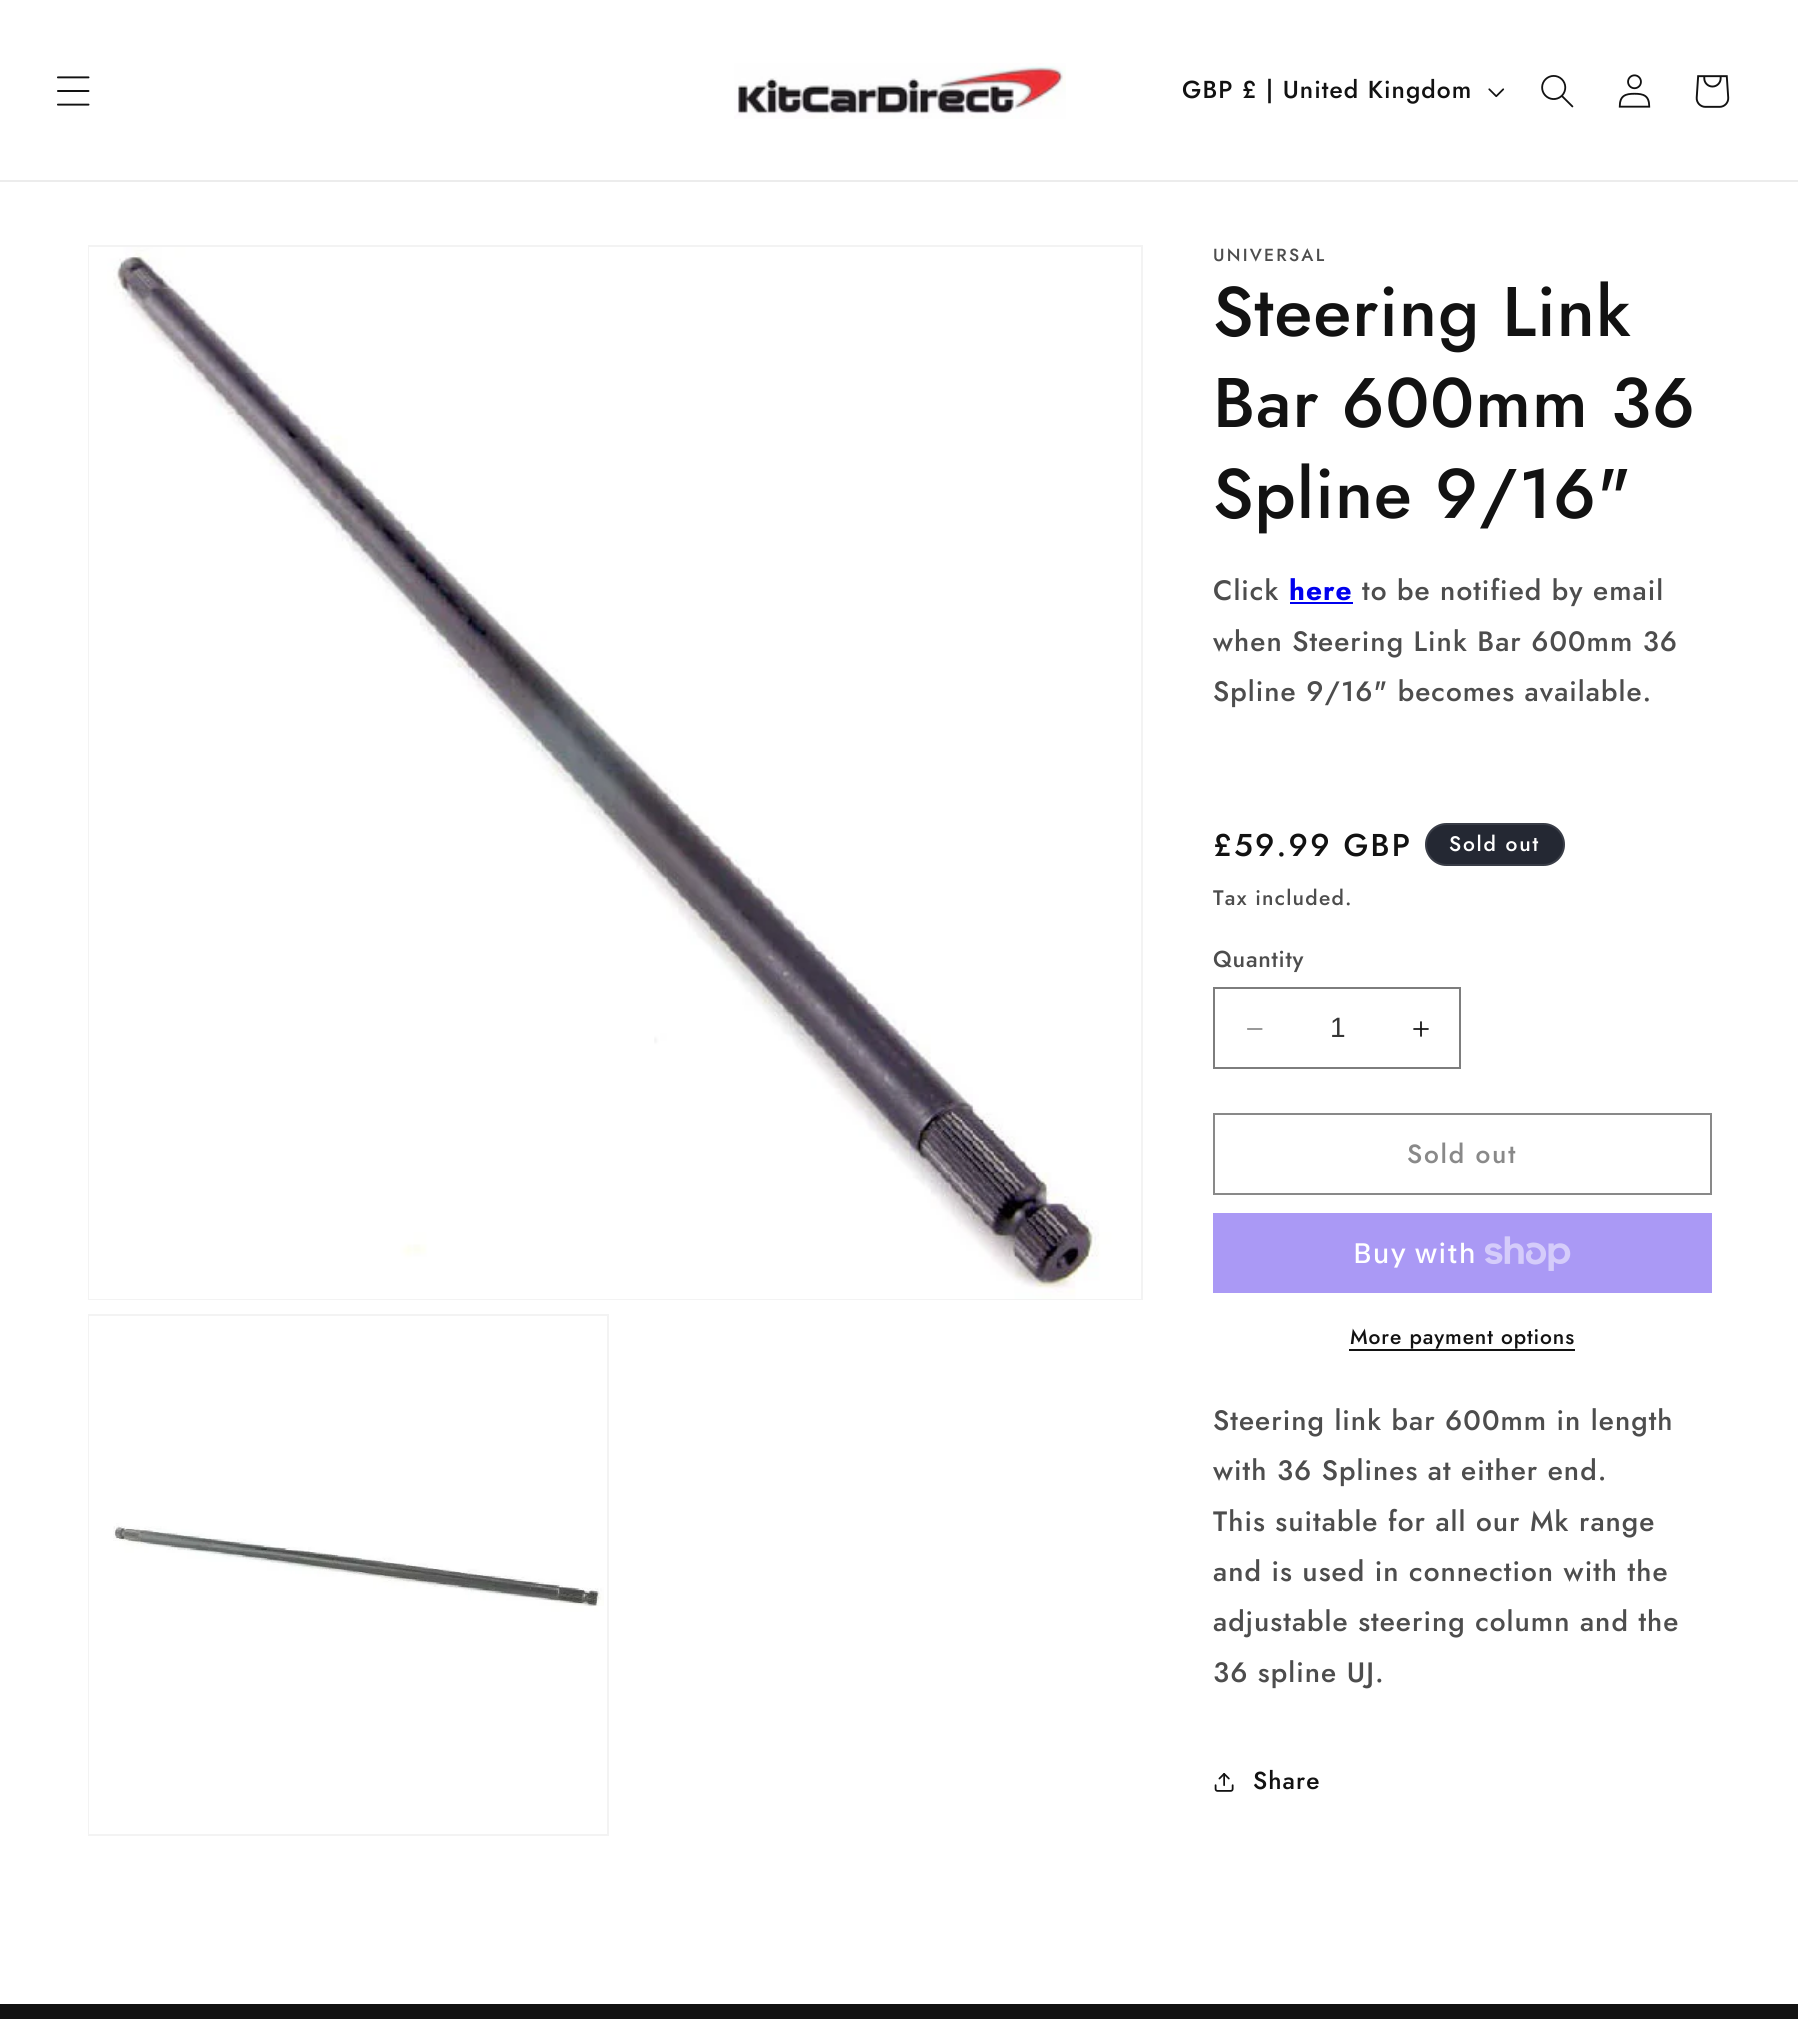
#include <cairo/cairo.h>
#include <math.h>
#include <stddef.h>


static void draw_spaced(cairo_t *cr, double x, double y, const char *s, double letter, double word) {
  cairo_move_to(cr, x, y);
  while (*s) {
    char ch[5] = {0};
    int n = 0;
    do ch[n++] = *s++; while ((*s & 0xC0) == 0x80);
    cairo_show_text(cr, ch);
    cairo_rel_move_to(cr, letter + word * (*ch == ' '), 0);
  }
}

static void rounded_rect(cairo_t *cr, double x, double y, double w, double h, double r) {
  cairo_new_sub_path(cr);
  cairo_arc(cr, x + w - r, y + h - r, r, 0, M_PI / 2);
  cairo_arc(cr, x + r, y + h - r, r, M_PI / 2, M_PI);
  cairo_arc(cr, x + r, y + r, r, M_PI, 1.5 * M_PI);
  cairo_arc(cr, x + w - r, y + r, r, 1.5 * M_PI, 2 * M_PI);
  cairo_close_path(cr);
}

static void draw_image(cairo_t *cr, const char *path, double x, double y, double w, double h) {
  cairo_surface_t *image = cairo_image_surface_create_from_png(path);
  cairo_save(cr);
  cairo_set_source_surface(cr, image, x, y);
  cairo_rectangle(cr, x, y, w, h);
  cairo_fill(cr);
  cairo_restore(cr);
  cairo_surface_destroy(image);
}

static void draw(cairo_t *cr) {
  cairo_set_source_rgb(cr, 1, 1, 1);
  cairo_paint(cr);
  cairo_set_source_rgb(cr, 236 / 255.0, 236 / 255.0, 236 / 255.0);
  cairo_rectangle(cr, 0, 180, 1798, 2);
  cairo_fill(cr);
  draw_image(cr, "images/1.png", 57, 76, 33, 30);
  draw_image(cr, "images/2.png", 734, 63, 332, 56);
  draw_image(cr, "images/3.png", 1488, 88, 17, 10);
  draw_image(cr, "images/4.png", 1541, 75, 33, 33);
  draw_image(cr, "images/5.png", 1618, 74, 33, 34);
  draw_image(cr, "images/6.png", 1695, 75, 35, 33);
  cairo_rectangle(cr, 89, 246, 1053, 1053);
  cairo_set_source_rgb(cr, 243 / 255.0, 243 / 255.0, 243 / 255.0);
  cairo_stroke(cr);
  draw_image(cr, "images/7.png", 89, 247, 1052, 1052);
  cairo_rectangle(cr, 89, 1315, 519, 520);
  cairo_stroke(cr);
  draw_image(cr, "images/8.png", 89, 1316, 515, 518);
  cairo_set_source_rgb(cr, 0, 0, 238 / 255.0);
  cairo_rectangle(cr, 1290, 602, 63, 2);
  cairo_fill(cr);
  cairo_set_source_rgb(cr, 36 / 255.0, 40 / 255.0, 51 / 255.0);
  rounded_rect(cr, 1425, 823, 140, 43, 21.5);
  cairo_fill(cr);
  rounded_rect(cr, 1426, 824, 138, 41, 20.5);
  cairo_set_source_rgba(cr, 1, 1, 1, 0.1);
  cairo_stroke(cr);
  draw_image(cr, "images/9.png", 1247, 1028, 16, 2);
  draw_image(cr, "images/10.png", 1413, 1021, 16, 16);
  cairo_rectangle(cr, 1214, 988, 246, 80);
  cairo_set_source_rgb(cr, 125 / 255.0, 125 / 255.0, 125 / 255.0);
  cairo_stroke(cr);
  cairo_rectangle(cr, 1214, 1114, 497, 80);
  cairo_set_source_rgb(cr, 137 / 255.0, 137 / 255.0, 137 / 255.0);
  cairo_stroke(cr);
  cairo_set_source_rgb(cr, 170 / 255.0, 153 / 255.0, 245 / 255.0);
  cairo_rectangle(cr, 1213, 1213, 499, 80);
  cairo_fill(cr);
  draw_image(cr, "images/11.png", 1485, 1236, 86, 35);
  cairo_set_source_rgb(cr, 18 / 255.0, 18 / 255.0, 18 / 255.0);
  cairo_rectangle(cr, 1349, 1349, 226, 2);
  cairo_fill(cr);
  draw_image(cr, "images/12.png", 1214, 1773, 20, 19);
  cairo_rectangle(cr, 0, 2004, 1798, 15);
  cairo_fill(cr);
  cairo_select_font_face(cr, "Jost Medium", CAIRO_FONT_SLANT_NORMAL, CAIRO_FONT_WEIGHT_NORMAL);
  cairo_set_font_size(cr, 24.5);
  draw_spaced(cr, 1182, 98, "GBP £ | United Kingdom", 1.05, 0);
  cairo_set_font_size(cr, 17.5);
  cairo_set_source_rgb(cr, 77 / 255.0, 77 / 255.0, 77 / 255.0);
  draw_spaced(cr, 1213, 261, "UNIVERSAL", 2.25, 0);
  cairo_set_font_size(cr, 70);
  cairo_set_source_rgb(cr, 18 / 255.0, 18 / 255.0, 18 / 255.0);
  draw_spaced(cr, 1213, 336, "Steering Link", 1.05, 0);
  draw_spaced(cr, 1213, 427, "Bar 600mm 36", 1.05, 0);
  draw_spaced(cr, 1213, 518, "Spline 9/16\"", 1.05, 0);
  cairo_set_font_size(cr, 28);
  cairo_set_source_rgb(cr, 77 / 255.0, 77 / 255.0, 77 / 255.0);
  draw_spaced(cr, 1213, 600, "Click", 1.05, 0);
  cairo_select_font_face(cr, "Jost", CAIRO_FONT_SLANT_NORMAL, CAIRO_FONT_WEIGHT_BOLD);
  cairo_set_source_rgb(cr, 0, 0, 238 / 255.0);
  draw_spaced(cr, 1289, 600, "here", 1.05, 0);
  cairo_select_font_face(cr, "Jost Medium", CAIRO_FONT_SLANT_NORMAL, CAIRO_FONT_WEIGHT_NORMAL);
  cairo_set_source_rgb(cr, 77 / 255.0, 77 / 255.0, 77 / 255.0);
  draw_spaced(cr, 1362, 600, "to be notified by email", 1.05, 0);
  draw_spaced(cr, 1213, 651, "when Steering Link Bar 600mm 36", 1.05, 0);
  draw_spaced(cr, 1213, 701, "Spline 9/16\" becomes available.", 1.05, 0);
  cairo_set_font_size(cr, 31.5);
  cairo_set_source_rgb(cr, 18 / 255.0, 18 / 255.0, 18 / 255.0);
  draw_spaced(cr, 1213, 856, "£59.99 GBP", 2.25, 0);
  cairo_set_font_size(cr, 21);
  cairo_set_source_rgb(cr, 1, 1, 1);
  draw_spaced(cr, 1449, 851, "Sold out", 1.75, 0);
  cairo_set_source_rgb(cr, 77 / 255.0, 77 / 255.0, 77 / 255.0);
  draw_spaced(cr, 1213, 905, "Tax included.", 1.25, 0);
  cairo_set_font_size(cr, 23);
  draw_spaced(cr, 1213, 967, "Quantity", 0.75, 0);
  cairo_select_font_face(cr, "Liberation Sans", CAIRO_FONT_SLANT_NORMAL, CAIRO_FONT_WEIGHT_NORMAL);
  cairo_set_font_size(cr, 28);
  cairo_set_source_rgb(cr, 54 / 255.0, 54 / 255.0, 54 / 255.0);
  cairo_move_to(cr, 1330, 1037);
  cairo_show_text(cr, "1");
  cairo_select_font_face(cr, "Jost Medium", CAIRO_FONT_SLANT_NORMAL, CAIRO_FONT_WEIGHT_NORMAL);
  cairo_set_font_size(cr, 26.25);
  cairo_set_source_rgb(cr, 137 / 255.0, 137 / 255.0, 137 / 255.0);
  draw_spaced(cr, 1407, 1163, "Sold out", 1.75, 0);
  cairo_select_font_face(cr, "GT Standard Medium", CAIRO_FONT_SLANT_NORMAL, CAIRO_FONT_WEIGHT_NORMAL);
  cairo_set_font_size(cr, 28);
  cairo_set_source_rgb(cr, 1, 1, 1);
  draw_spaced(cr, 1353, 1263, "Buy with", 1.05, 0);
  cairo_select_font_face(cr, "Jost Medium", CAIRO_FONT_SLANT_NORMAL, CAIRO_FONT_WEIGHT_NORMAL);
  cairo_set_font_size(cr, 21);
  cairo_set_source_rgb(cr, 18 / 255.0, 18 / 255.0, 18 / 255.0);
  draw_spaced(cr, 1350, 1344, "More payment options", 0.9, 0);
  cairo_set_font_size(cr, 28);
  cairo_set_source_rgb(cr, 77 / 255.0, 77 / 255.0, 77 / 255.0);
  draw_spaced(cr, 1213, 1430, "Steering link bar 600mm in length", 1.05, 0);
  draw_spaced(cr, 1213, 1480, "with 36 Splines at either end.", 1.05, 0);
  draw_spaced(cr, 1213, 1531, "This suitable for all our Mk range", 1.05, 0);
  draw_spaced(cr, 1213, 1581, "and is used in connection with the", 1.05, 0);
  draw_spaced(cr, 1213, 1631, "adjustable steering column and the", 1.05, 0);
  draw_spaced(cr, 1213, 1682, "36 spline UJ.", 1.05, 0);
  cairo_set_font_size(cr, 24.5);
  cairo_set_source_rgb(cr, 18 / 255.0, 18 / 255.0, 18 / 255.0);
  draw_spaced(cr, 1253, 1789, "Share", 1.05, 0);
}

int main(void) {
  cairo_surface_t *surface = cairo_image_surface_create(CAIRO_FORMAT_RGB24, 1798, 2019);
  cairo_t *cr = cairo_create(surface);
  cairo_font_options_t *options = cairo_font_options_create();
  cairo_font_options_set_hint_metrics(options, CAIRO_HINT_METRICS_OFF);
  cairo_font_options_set_hint_style(options, CAIRO_HINT_STYLE_NONE);
  cairo_set_font_options(cr, options);
  cairo_set_miter_limit(cr, 4);
  draw(cr);
  cairo_surface_write_to_png(surface, "out.png");
  cairo_font_options_destroy(options);
  cairo_destroy(cr);
  cairo_surface_destroy(surface);
  return 0;
}
